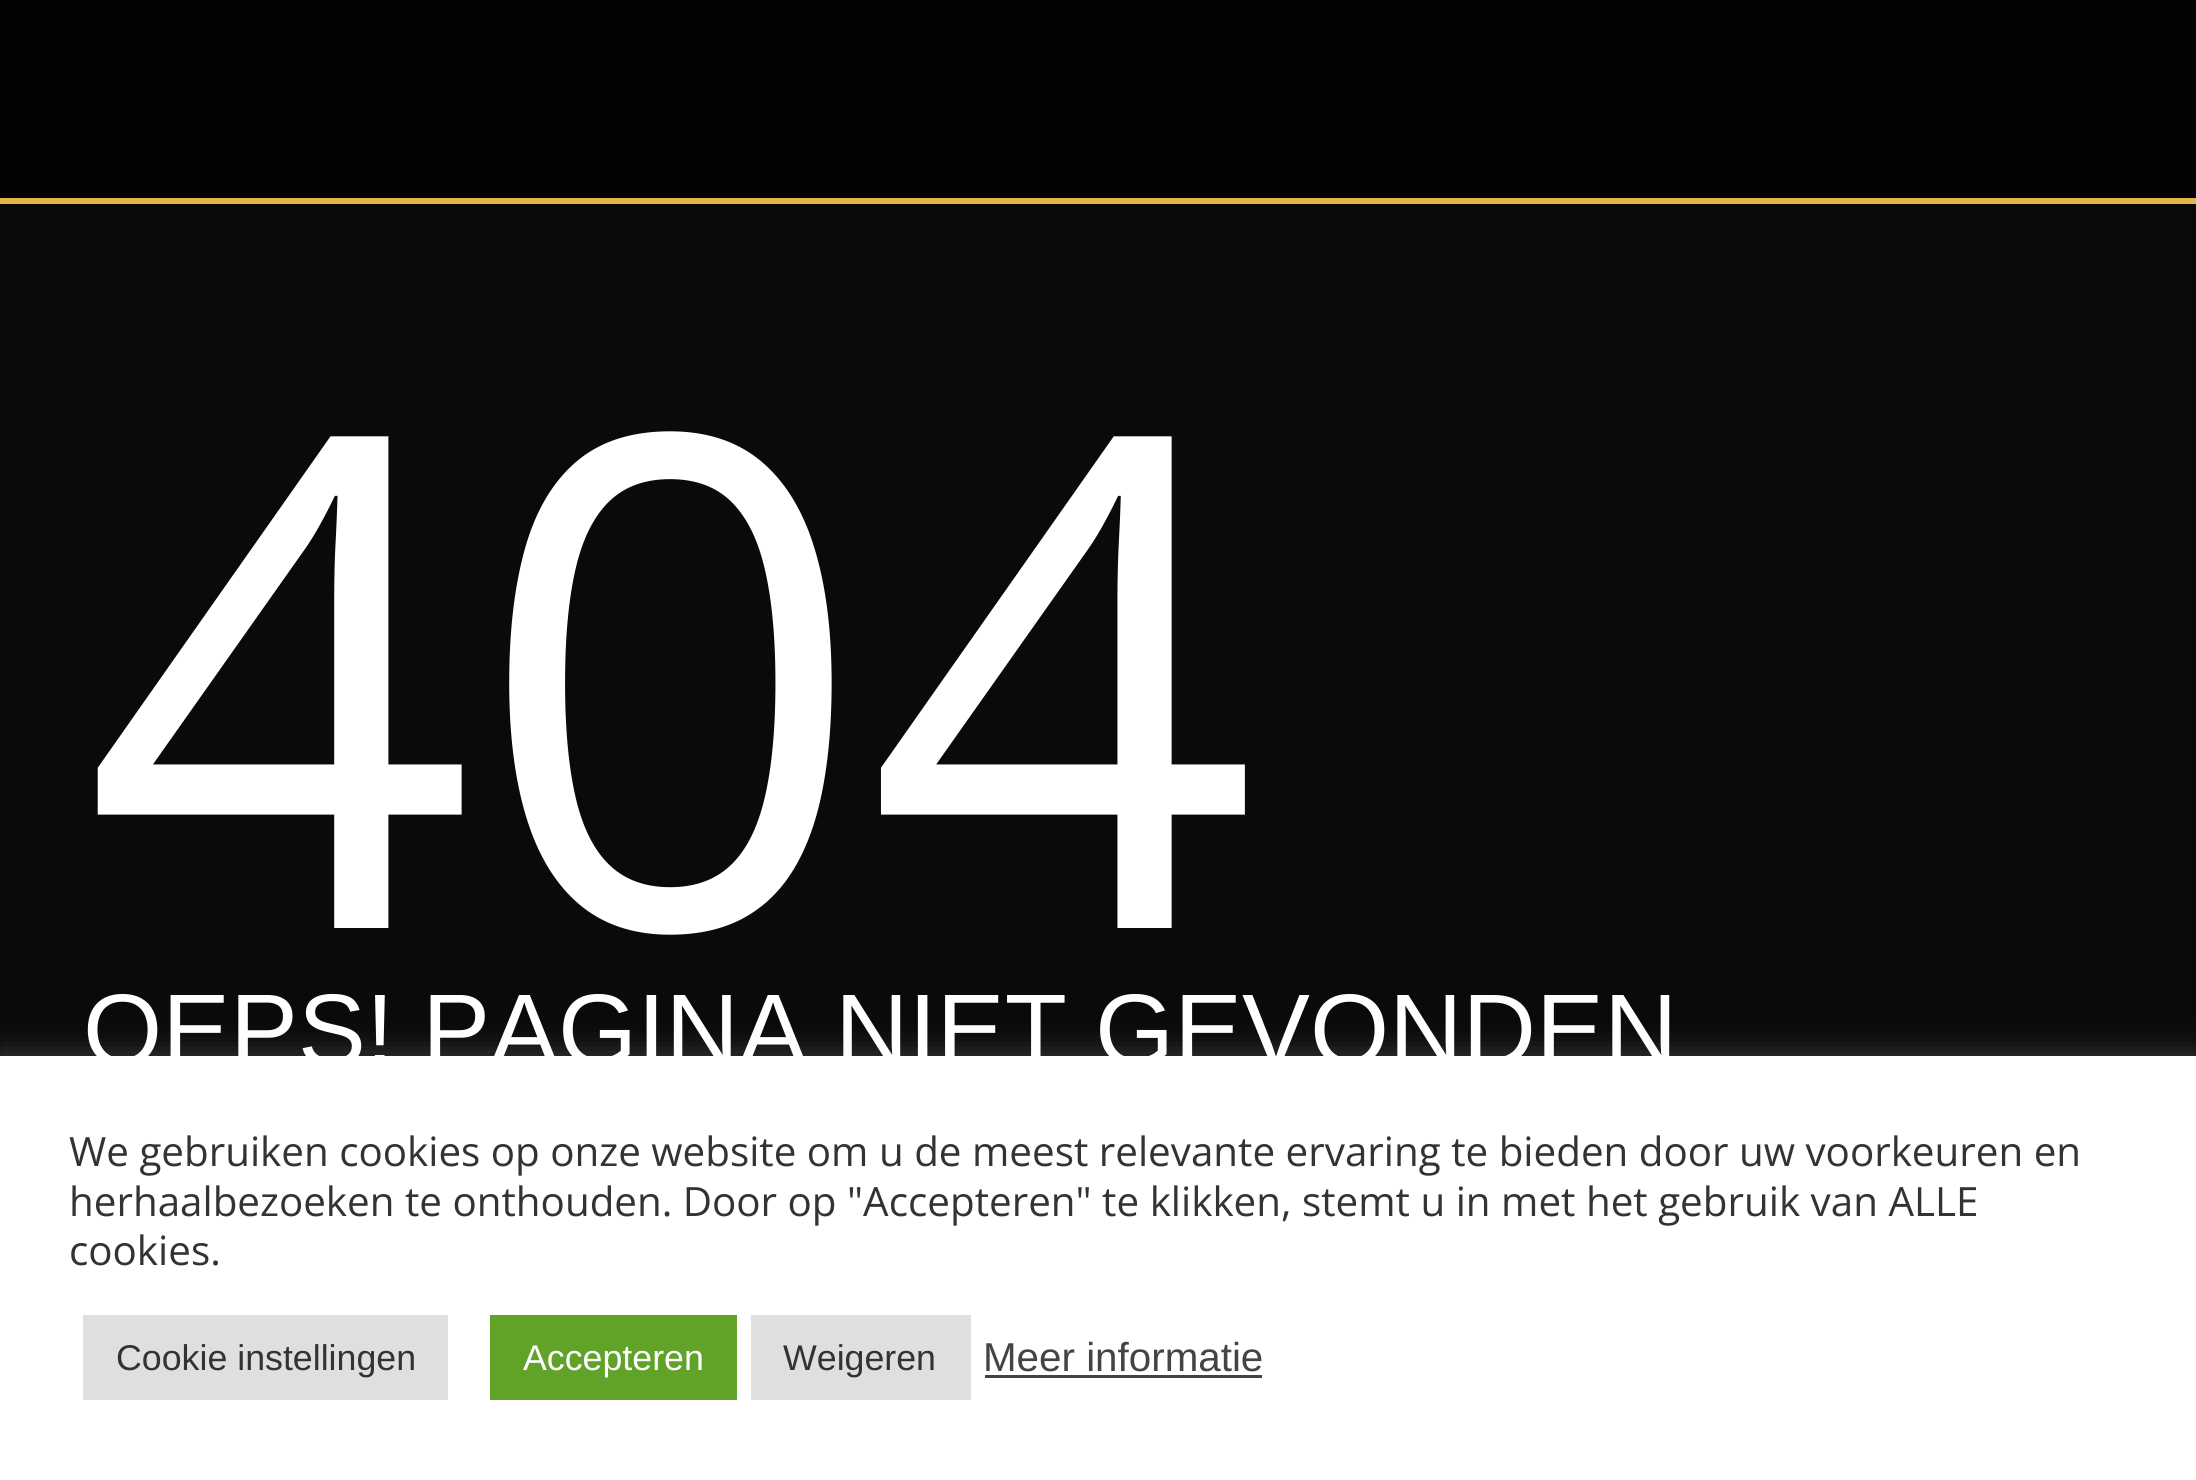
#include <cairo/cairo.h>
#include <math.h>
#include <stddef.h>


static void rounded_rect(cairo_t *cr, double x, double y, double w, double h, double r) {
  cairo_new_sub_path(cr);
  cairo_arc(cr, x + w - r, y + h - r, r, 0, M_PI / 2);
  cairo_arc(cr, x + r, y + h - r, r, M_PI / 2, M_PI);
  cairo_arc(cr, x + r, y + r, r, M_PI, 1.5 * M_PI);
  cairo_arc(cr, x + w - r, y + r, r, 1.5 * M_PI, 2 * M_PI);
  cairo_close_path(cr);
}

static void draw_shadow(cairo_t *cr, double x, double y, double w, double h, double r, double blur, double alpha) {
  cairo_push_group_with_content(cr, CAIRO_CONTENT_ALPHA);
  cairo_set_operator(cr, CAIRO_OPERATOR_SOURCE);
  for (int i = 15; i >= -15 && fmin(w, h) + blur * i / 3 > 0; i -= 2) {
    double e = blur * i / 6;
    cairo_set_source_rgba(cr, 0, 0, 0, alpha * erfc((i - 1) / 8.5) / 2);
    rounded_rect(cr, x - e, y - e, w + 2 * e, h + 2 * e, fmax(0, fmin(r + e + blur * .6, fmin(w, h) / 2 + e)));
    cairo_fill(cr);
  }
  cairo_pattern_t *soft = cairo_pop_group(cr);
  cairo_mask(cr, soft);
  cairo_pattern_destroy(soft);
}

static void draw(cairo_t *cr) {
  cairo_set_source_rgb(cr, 10 / 255.0, 10 / 255.0, 10 / 255.0);
  cairo_paint(cr);
  cairo_set_source_rgb(cr, 3 / 255.0, 3 / 255.0, 3 / 255.0);
  cairo_rectangle(cr, 0, 0, 2196, 198);
  cairo_fill(cr);
  cairo_set_source_rgb(cr, 228 / 255.0, 179 / 255.0, 76 / 255.0);
  cairo_rectangle(cr, 0, 198, 2196, 6);
  cairo_fill(cr);
  cairo_set_source_rgb(cr, 172 / 255.0, 171 / 255.0, 171 / 255.0);
  draw_shadow(cr, 0, 1053, 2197, 427, 0, 14, 0.3);
  cairo_set_source_rgb(cr, 1, 1, 1);
  cairo_rectangle(cr, 0, 1056, 2196, 424);
  cairo_fill(cr);
  cairo_set_source_rgb(cr, 222 / 255.0, 223 / 255.0, 224 / 255.0);
  cairo_rectangle(cr, 83, 1315, 365, 85);
  cairo_fill(cr);
  cairo_set_source_rgb(cr, 97 / 255.0, 162 / 255.0, 41 / 255.0);
  cairo_rectangle(cr, 490, 1315, 247, 85);
  cairo_fill(cr);
  cairo_set_source_rgb(cr, 222 / 255.0, 223 / 255.0, 224 / 255.0);
  cairo_rectangle(cr, 751, 1315, 220, 85);
  cairo_fill(cr);
  cairo_set_source_rgb(cr, 68 / 255.0, 68 / 255.0, 68 / 255.0);
  cairo_rectangle(cr, 985, 1375, 277, 3);
  cairo_fill(cr);
  cairo_select_font_face(cr, "Open Sans", CAIRO_FONT_SLANT_NORMAL, CAIRO_FONT_WEIGHT_NORMAL);
  cairo_set_font_size(cr, 685);
  cairo_set_source_rgb(cr, 1, 1, 1);
  cairo_move_to(cr, 83, 928);
  cairo_show_text(cr, "404");
  cairo_select_font_face(cr, "Liberation Sans", CAIRO_FONT_SLANT_NORMAL, CAIRO_FONT_WEIGHT_NORMAL);
  cairo_set_font_size(cr, 101.75);
  cairo_move_to(cr, 83, 1065);
  cairo_show_text(cr, "OEPS! PAGINA NIET GEVONDEN");
  cairo_select_font_face(cr, "Open Sans", CAIRO_FONT_SLANT_NORMAL, CAIRO_FONT_WEIGHT_NORMAL);
  cairo_set_font_size(cr, 40.35);
  cairo_set_source_rgb(cr, 51 / 255.0, 51 / 255.0, 51 / 255.0);
  cairo_move_to(cr, 69, 1166);
  cairo_show_text(cr, "We gebruiken cookies op onze website om u de meest relevante ervaring te bieden door uw voorkeuren en");
  cairo_move_to(cr, 69, 1216);
  cairo_show_text(cr, "herhaalbezoeken te onthouden. Door op \"Accepteren\" te klikken, stemt u in met het gebruik van ALLE");
  cairo_move_to(cr, 69, 1265);
  cairo_show_text(cr, "cookies.");
  cairo_select_font_face(cr, "Liberation Sans", CAIRO_FONT_SLANT_NORMAL, CAIRO_FONT_WEIGHT_NORMAL);
  cairo_set_font_size(cr, 35.75);
  cairo_move_to(cr, 116, 1370);
  cairo_show_text(cr, "Cookie instellingen");
  cairo_set_source_rgb(cr, 1, 1, 1);
  cairo_move_to(cr, 523, 1370);
  cairo_show_text(cr, "Accepteren");
  cairo_set_source_rgb(cr, 51 / 255.0, 51 / 255.0, 51 / 255.0);
  cairo_move_to(cr, 783, 1370);
  cairo_show_text(cr, "Weigeren");
  cairo_set_font_size(cr, 40.35);
  cairo_set_source_rgb(cr, 68 / 255.0, 68 / 255.0, 68 / 255.0);
  cairo_move_to(cr, 983, 1371);
  cairo_show_text(cr, "Meer informatie");
}

int main(void) {
  cairo_surface_t *surface = cairo_image_surface_create(CAIRO_FORMAT_RGB24, 2196, 1480);
  cairo_t *cr = cairo_create(surface);
  cairo_font_options_t *options = cairo_font_options_create();
  cairo_font_options_set_hint_metrics(options, CAIRO_HINT_METRICS_OFF);
  cairo_font_options_set_hint_style(options, CAIRO_HINT_STYLE_NONE);
  cairo_set_font_options(cr, options);
  cairo_set_miter_limit(cr, 4);
  draw(cr);
  cairo_surface_write_to_png(surface, "out.png");
  cairo_font_options_destroy(options);
  cairo_destroy(cr);
  cairo_surface_destroy(surface);
  return 0;
}
